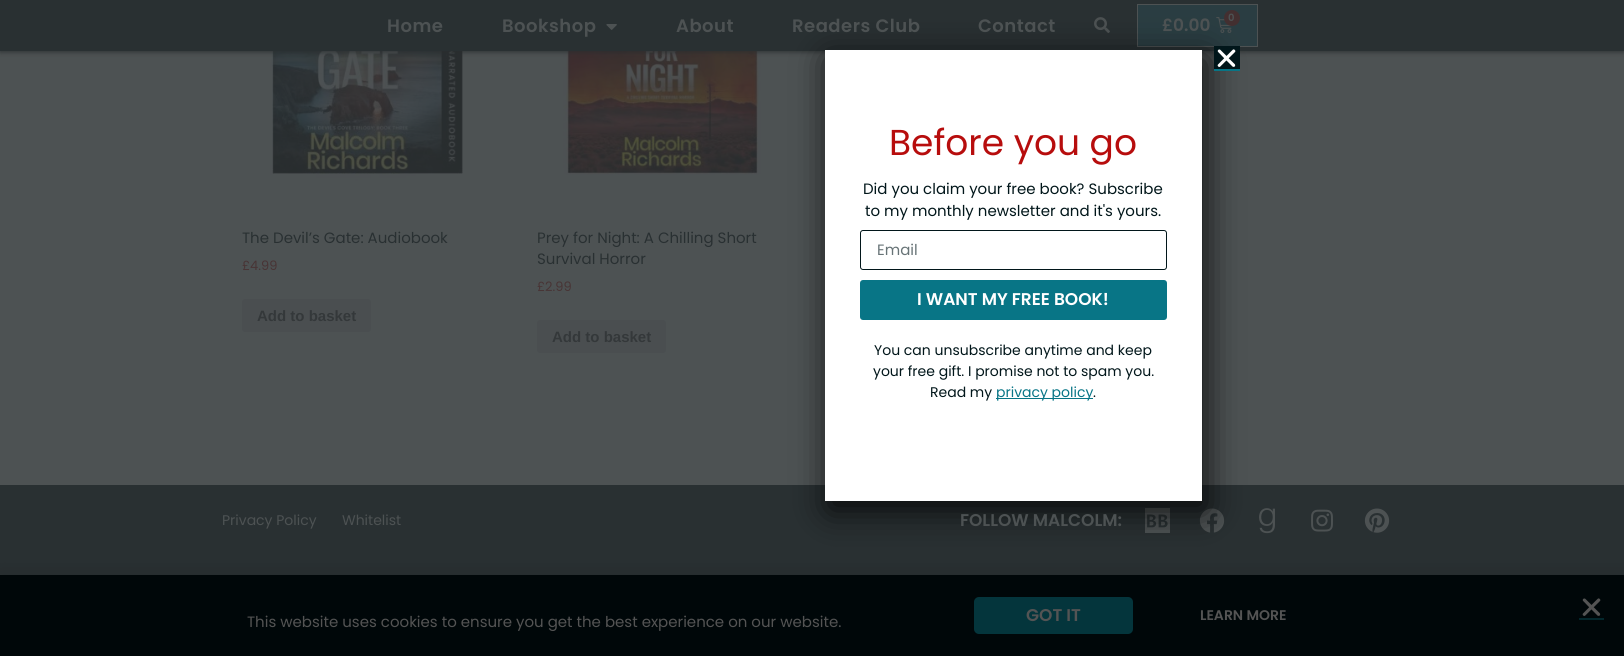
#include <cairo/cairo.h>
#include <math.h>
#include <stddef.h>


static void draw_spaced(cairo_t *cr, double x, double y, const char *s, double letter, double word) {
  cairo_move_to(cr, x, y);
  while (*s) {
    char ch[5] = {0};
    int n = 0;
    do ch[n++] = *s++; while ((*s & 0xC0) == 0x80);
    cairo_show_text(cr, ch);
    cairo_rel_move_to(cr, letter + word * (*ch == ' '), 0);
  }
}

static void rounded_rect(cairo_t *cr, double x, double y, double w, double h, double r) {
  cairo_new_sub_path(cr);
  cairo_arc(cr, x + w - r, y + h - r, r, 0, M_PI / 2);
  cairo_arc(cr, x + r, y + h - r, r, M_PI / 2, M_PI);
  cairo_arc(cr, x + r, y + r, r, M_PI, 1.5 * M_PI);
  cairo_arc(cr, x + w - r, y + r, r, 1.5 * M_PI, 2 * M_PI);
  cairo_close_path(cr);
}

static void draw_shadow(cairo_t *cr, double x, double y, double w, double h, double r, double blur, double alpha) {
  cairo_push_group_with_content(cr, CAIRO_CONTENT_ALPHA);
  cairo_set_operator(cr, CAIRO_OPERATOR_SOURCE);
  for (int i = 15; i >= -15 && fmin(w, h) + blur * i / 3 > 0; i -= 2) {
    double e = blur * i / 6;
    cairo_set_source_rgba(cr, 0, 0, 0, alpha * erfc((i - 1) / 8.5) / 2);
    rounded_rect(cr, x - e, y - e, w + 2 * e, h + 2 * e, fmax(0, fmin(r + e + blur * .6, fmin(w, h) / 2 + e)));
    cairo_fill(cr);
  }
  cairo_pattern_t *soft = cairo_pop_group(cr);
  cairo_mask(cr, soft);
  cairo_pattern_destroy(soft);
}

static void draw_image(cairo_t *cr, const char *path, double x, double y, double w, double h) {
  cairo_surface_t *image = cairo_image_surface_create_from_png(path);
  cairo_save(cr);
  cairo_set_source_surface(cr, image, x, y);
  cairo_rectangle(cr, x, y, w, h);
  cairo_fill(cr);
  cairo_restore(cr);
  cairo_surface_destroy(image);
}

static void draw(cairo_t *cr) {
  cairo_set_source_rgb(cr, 77 / 255.0, 82 / 255.0, 83 / 255.0);
  cairo_paint(cr);
  draw_image(cr, "images/4.png", 270, 51, 193, 130);
  draw_image(cr, "images/5.png", 563, 51, 198, 124);
  cairo_set_source_rgb(cr, 40 / 255.0, 45 / 255.0, 46 / 255.0);
  draw_shadow(cr, 0, 1, 1624, 51, 0, 2.5, 0.89);
  cairo_set_source_rgb(cr, 41 / 255.0, 48 / 255.0, 50 / 255.0);
  cairo_rectangle(cr, 0, 0, 1624, 51);
  cairo_fill(cr);
  draw_image(cr, "images/1.png", 606, 24, 11, 6);
  draw_image(cr, "images/2.png", 1094, 17, 16, 16);
  cairo_set_source_rgb(cr, 42 / 255.0, 61 / 255.0, 66 / 255.0);
  cairo_rectangle(cr, 1137.5, 4.5, 120, 42);
  cairo_fill_preserve(cr);
  cairo_set_source_rgb(cr, 77 / 255.0, 82 / 255.0, 83 / 255.0);
  cairo_set_line_width(cr, 1);
  cairo_stroke(cr);
  draw_image(cr, "images/3.png", 1216, 17, 16, 16);
  cairo_set_source_rgb(cr, 67 / 255.0, 47 / 255.0, 48 / 255.0);
  cairo_arc(cr, 1232, 18, 8, 0, 2 * M_PI);
  cairo_fill(cr);
  cairo_set_source_rgb(cr, 74 / 255.0, 78 / 255.0, 80 / 255.0);
  rounded_rect(cr, 242, 299, 129, 33, 3);
  cairo_fill(cr);
  rounded_rect(cr, 537, 320, 129, 33, 3);
  cairo_fill(cr);
  cairo_set_source_rgb(cr, 41 / 255.0, 48 / 255.0, 50 / 255.0);
  cairo_rectangle(cr, 0, 485, 1624, 90);
  cairo_fill(cr);
  draw_image(cr, "images/7.png", 1145, 508, 25, 25);
  draw_image(cr, "images/8.png", 1199, 508, 26, 25);
  cairo_set_source_rgb(cr, 0, 0, 0);
  draw_shadow(cr, 829, 59, 377, 451, 0, 17, 0.82);
  cairo_set_source_rgb(cr, 1 / 255.0, 22 / 255.0, 26 / 255.0);
  cairo_rectangle(cr, 1214, 46, 26, 23);
  cairo_fill(cr);
  draw_image(cr, "images/6.png", 1217, 49, 19, 18);
  cairo_set_source_rgb(cr, 8 / 255.0, 117 / 255.0, 134 / 255.0);
  cairo_rectangle(cr, 1214, 69, 26, 2);
  cairo_fill(cr);
  cairo_set_source_rgb(cr, 1, 1, 1);
  cairo_rectangle(cr, 825, 50, 377, 451);
  cairo_fill(cr);
  rounded_rect(cr, 860.5, 230.5, 306, 39, 2.5);
  cairo_set_source_rgb(cr, 1 / 255.0, 22 / 255.0, 26 / 255.0);
  cairo_stroke(cr);
  cairo_set_source_rgb(cr, 8 / 255.0, 117 / 255.0, 134 / 255.0);
  rounded_rect(cr, 860, 280, 307, 40, 3);
  cairo_fill(cr);
  cairo_rectangle(cr, 996, 398, 97, 1);
  cairo_fill(cr);
  draw_image(cr, "images/9.png", 1259, 508, 16, 26);
  draw_image(cr, "images/10.png", 1311, 509, 22, 23);
  draw_image(cr, "images/11.png", 1364, 508, 26, 25);
  cairo_set_source_rgb(cr, 0, 0, 0);
  draw_shadow(cr, -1, 580, 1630, 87, 0, 11.5, 0.2);
  cairo_set_source_rgb(cr, 0, 7 / 255.0, 9 / 255.0);
  cairo_rectangle(cr, 0, 575, 1624, 81);
  cairo_fill(cr);
  cairo_set_source_rgb(cr, 4 / 255.0, 53 / 255.0, 60 / 255.0);
  rounded_rect(cr, 974, 597, 159, 37, 5);
  cairo_fill(cr);
  draw_image(cr, "images/12.png", 1582, 598, 19, 18);
  cairo_set_source_rgb(cr, 3 / 255.0, 39 / 255.0, 44 / 255.0);
  cairo_rectangle(cr, 1579, 618, 25, 2);
  cairo_fill(cr);
  cairo_select_font_face(cr, "Poppins SemiBold", CAIRO_FONT_SLANT_NORMAL, CAIRO_FONT_WEIGHT_NORMAL);
  cairo_set_font_size(cr, 18);
  cairo_set_source_rgb(cr, 77 / 255.0, 82 / 255.0, 83 / 255.0);
  draw_spaced(cr, 387, 32, "Home", 0.5, 0);
  draw_spaced(cr, 502, 32, "Bookshop", 0.5, 0);
  draw_spaced(cr, 676, 32, "About", 0.5, 0);
  draw_spaced(cr, 792, 32, "Readers Club", 0.5, 0);
  draw_spaced(cr, 978, 32, "Contact", 0.5, 0);
  cairo_set_font_size(cr, 10);
  cairo_move_to(cr, 1228, 21);
  cairo_show_text(cr, "0");
  cairo_set_font_size(cr, 17);
  cairo_move_to(cr, 1162, 31);
  cairo_show_text(cr, "£0.00");
  cairo_select_font_face(cr, "Poppins", CAIRO_FONT_SLANT_NORMAL, CAIRO_FONT_WEIGHT_NORMAL);
  cairo_set_font_size(cr, 15);
  cairo_set_source_rgb(cr, 41 / 255.0, 48 / 255.0, 50 / 255.0);
  cairo_move_to(cr, 242, 243);
  cairo_show_text(cr, "The Devil’s Gate: Audiobook");
  cairo_set_font_size(cr, 13);
  cairo_set_source_rgb(cr, 72 / 255.0, 52 / 255.0, 53 / 255.0);
  cairo_move_to(cr, 242, 270);
  cairo_show_text(cr, "£4.99");
  cairo_select_font_face(cr, "Liberation Sans", CAIRO_FONT_SLANT_NORMAL, CAIRO_FONT_WEIGHT_BOLD);
  cairo_set_font_size(cr, 15);
  cairo_set_source_rgb(cr, 52 / 255.0, 56 / 255.0, 58 / 255.0);
  cairo_move_to(cr, 257, 321);
  cairo_show_text(cr, "Add to basket");
  cairo_select_font_face(cr, "Poppins", CAIRO_FONT_SLANT_NORMAL, CAIRO_FONT_WEIGHT_NORMAL);
  cairo_set_source_rgb(cr, 41 / 255.0, 48 / 255.0, 50 / 255.0);
  cairo_move_to(cr, 537, 243);
  cairo_show_text(cr, "Prey for Night: A Chilling Short");
  cairo_move_to(cr, 537, 264);
  cairo_show_text(cr, "Survival Horror");
  cairo_set_font_size(cr, 13);
  cairo_set_source_rgb(cr, 72 / 255.0, 52 / 255.0, 53 / 255.0);
  cairo_move_to(cr, 537, 291);
  cairo_show_text(cr, "£2.99");
  cairo_select_font_face(cr, "Liberation Sans", CAIRO_FONT_SLANT_NORMAL, CAIRO_FONT_WEIGHT_BOLD);
  cairo_set_font_size(cr, 15);
  cairo_set_source_rgb(cr, 52 / 255.0, 56 / 255.0, 58 / 255.0);
  cairo_move_to(cr, 552, 342);
  cairo_show_text(cr, "Add to basket");
  cairo_select_font_face(cr, "Poppins", CAIRO_FONT_SLANT_NORMAL, CAIRO_FONT_WEIGHT_NORMAL);
  cairo_set_font_size(cr, 36);
  cairo_set_source_rgb(cr, 183 / 255.0, 13 / 255.0, 13 / 255.0);
  cairo_move_to(cr, 889, 155);
  cairo_show_text(cr, "Before you go");
  cairo_set_font_size(cr, 15);
  cairo_set_source_rgb(cr, 1 / 255.0, 22 / 255.0, 26 / 255.0);
  cairo_move_to(cr, 863, 194);
  cairo_show_text(cr, "Did you claim your free book? Subscribe");
  cairo_move_to(cr, 865, 216);
  cairo_show_text(cr, "to my monthly newsletter and it's yours.");
  cairo_set_source_rgb(cr, 103 / 255.0, 115 / 255.0, 118 / 255.0);
  cairo_move_to(cr, 877, 255);
  cairo_show_text(cr, "Email");
  cairo_select_font_face(cr, "Poppins SemiBold", CAIRO_FONT_SLANT_NORMAL, CAIRO_FONT_WEIGHT_NORMAL);
  cairo_set_font_size(cr, 17);
  cairo_set_source_rgb(cr, 1, 1, 1);
  cairo_move_to(cr, 917, 305);
  cairo_show_text(cr, "I WANT MY FREE BOOK!");
  cairo_select_font_face(cr, "Poppins", CAIRO_FONT_SLANT_NORMAL, CAIRO_FONT_WEIGHT_NORMAL);
  cairo_set_font_size(cr, 14);
  cairo_set_source_rgb(cr, 1 / 255.0, 22 / 255.0, 26 / 255.0);
  cairo_move_to(cr, 874, 355);
  cairo_show_text(cr, "You can unsubscribe anytime and keep");
  cairo_move_to(cr, 873, 376);
  cairo_show_text(cr, "your free gift. I promise not to spam you.");
  cairo_move_to(cr, 930, 397);
  cairo_show_text(cr, "Read my");
  cairo_set_source_rgb(cr, 8 / 255.0, 117 / 255.0, 134 / 255.0);
  cairo_move_to(cr, 996, 397);
  cairo_show_text(cr, "privacy policy");
  cairo_set_source_rgb(cr, 1 / 255.0, 22 / 255.0, 26 / 255.0);
  cairo_move_to(cr, 1093, 397);
  cairo_show_text(cr, ".");
  cairo_set_source_rgb(cr, 77 / 255.0, 82 / 255.0, 83 / 255.0);
  cairo_move_to(cr, 222, 525);
  cairo_show_text(cr, "Privacy Policy");
  cairo_move_to(cr, 342, 525);
  cairo_show_text(cr, "Whitelist");
  cairo_select_font_face(cr, "Poppins SemiBold", CAIRO_FONT_SLANT_NORMAL, CAIRO_FONT_WEIGHT_NORMAL);
  cairo_set_font_size(cr, 17);
  cairo_move_to(cr, 960, 526);
  cairo_show_text(cr, "FOLLOW MALCOLM:");
  cairo_select_font_face(cr, "Poppins", CAIRO_FONT_SLANT_NORMAL, CAIRO_FONT_WEIGHT_NORMAL);
  cairo_set_font_size(cr, 15);
  cairo_set_source_rgb(cr, 84 / 255.0, 84 / 255.0, 84 / 255.0);
  cairo_move_to(cr, 247, 627);
  cairo_show_text(cr, "This website uses cookies to ensure you get the best experience on our website.");
  cairo_select_font_face(cr, "Poppins SemiBold", CAIRO_FONT_SLANT_NORMAL, CAIRO_FONT_WEIGHT_NORMAL);
  cairo_set_font_size(cr, 17);
  cairo_move_to(cr, 1026, 621);
  cairo_show_text(cr, "GOT IT");
  cairo_set_font_size(cr, 14);
  cairo_move_to(cr, 1200, 620);
  cairo_show_text(cr, "LEARN MORE");
}

int main(void) {
  cairo_surface_t *surface = cairo_image_surface_create(CAIRO_FORMAT_RGB24, 1624, 656);
  cairo_t *cr = cairo_create(surface);
  cairo_font_options_t *options = cairo_font_options_create();
  cairo_font_options_set_hint_metrics(options, CAIRO_HINT_METRICS_OFF);
  cairo_font_options_set_hint_style(options, CAIRO_HINT_STYLE_NONE);
  cairo_set_font_options(cr, options);
  cairo_set_miter_limit(cr, 4);
  draw(cr);
  cairo_surface_write_to_png(surface, "out.png");
  cairo_font_options_destroy(options);
  cairo_destroy(cr);
  cairo_surface_destroy(surface);
  return 0;
}
